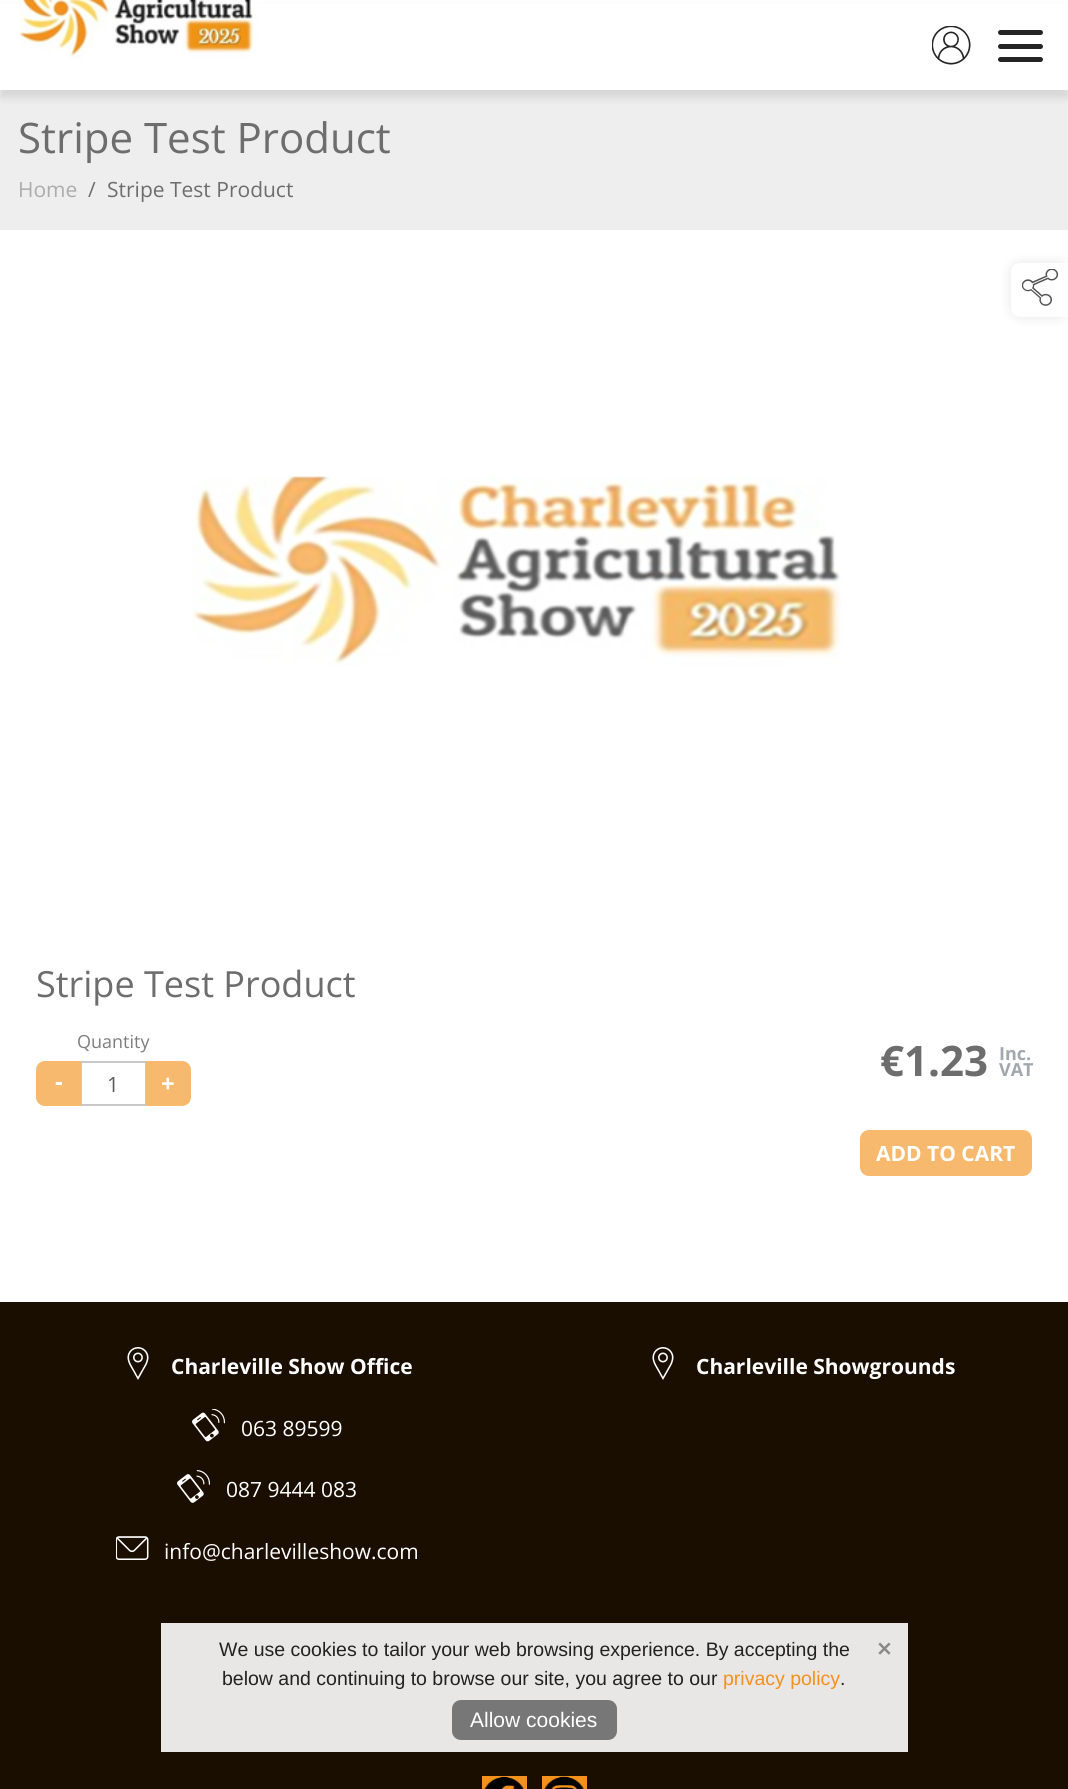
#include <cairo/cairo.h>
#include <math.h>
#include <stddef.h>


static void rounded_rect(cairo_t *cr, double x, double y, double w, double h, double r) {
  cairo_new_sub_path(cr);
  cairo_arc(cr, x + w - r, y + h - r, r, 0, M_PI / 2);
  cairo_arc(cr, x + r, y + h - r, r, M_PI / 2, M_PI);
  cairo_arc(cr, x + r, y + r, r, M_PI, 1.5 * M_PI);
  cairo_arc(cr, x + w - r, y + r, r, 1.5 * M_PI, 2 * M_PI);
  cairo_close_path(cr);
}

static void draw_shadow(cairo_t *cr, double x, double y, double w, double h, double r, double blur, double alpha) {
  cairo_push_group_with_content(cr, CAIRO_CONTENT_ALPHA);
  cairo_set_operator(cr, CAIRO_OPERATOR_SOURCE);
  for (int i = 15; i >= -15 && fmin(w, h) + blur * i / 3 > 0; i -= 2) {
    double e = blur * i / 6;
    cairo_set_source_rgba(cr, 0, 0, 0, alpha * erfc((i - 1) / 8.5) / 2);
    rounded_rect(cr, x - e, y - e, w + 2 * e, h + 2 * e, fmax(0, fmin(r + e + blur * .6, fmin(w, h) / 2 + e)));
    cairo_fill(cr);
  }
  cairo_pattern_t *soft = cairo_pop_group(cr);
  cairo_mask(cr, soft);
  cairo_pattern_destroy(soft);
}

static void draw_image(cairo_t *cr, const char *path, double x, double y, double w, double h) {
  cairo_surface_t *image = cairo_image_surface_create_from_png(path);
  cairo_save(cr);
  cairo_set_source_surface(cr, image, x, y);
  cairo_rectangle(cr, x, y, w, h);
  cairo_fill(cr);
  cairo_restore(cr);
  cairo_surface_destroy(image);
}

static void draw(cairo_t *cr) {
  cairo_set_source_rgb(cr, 1, 1, 1);
  cairo_paint(cr);
  cairo_set_source_rgb(cr, 238 / 255.0, 238 / 255.0, 238 / 255.0);
  cairo_rectangle(cr, 0, 90, 1068, 140);
  cairo_fill(cr);
  cairo_set_source_rgb(cr, 0, 0, 0);
  draw_shadow(cr, 0, 8, 1068, 90, 0, 4, 0.1);
  cairo_set_source_rgb(cr, 1, 1, 1);
  cairo_rectangle(cr, 0, 3, 1068, 87);
  cairo_fill(cr);
  draw_image(cr, "images/1.png", 19, 0, 238, 59);
  draw_image(cr, "images/2.png", 932, 26, 39, 39);
  cairo_set_source_rgb(cr, 37 / 255.0, 37 / 255.0, 37 / 255.0);
  rounded_rect(cr, 998, 44, 45, 5, 2.5);
  cairo_fill(cr);
  rounded_rect(cr, 998, 30, 45, 5, 2.5);
  cairo_fill(cr);
  rounded_rect(cr, 998, 57, 45, 5, 2.5);
  cairo_fill(cr);
  cairo_set_source_rgb(cr, 0, 0, 0);
  draw_shadow(cr, 1011, 263, 57, 54, 9, 6, 0.1);
  cairo_set_source_rgb(cr, 1, 1, 1);
  cairo_new_path(cr);
  cairo_move_to(cr, 1020, 263);
  cairo_line_to(cr, 1068, 263);
  cairo_line_to(cr, 1068, 317);
  cairo_line_to(cr, 1020, 317);
  cairo_curve_to(cr, 1015, 317, 1011, 313, 1011, 308);
  cairo_line_to(cr, 1011, 272);
  cairo_curve_to(cr, 1011, 267, 1015, 263, 1020, 263);
  cairo_close_path(cr);
  cairo_fill(cr);
  draw_image(cr, "images/3.png", 1022, 269, 37, 37);
  draw_image(cr, "images/4.png", 192, 476, 649, 190);
  cairo_rectangle(cr, 81, 1062, 65, 43);
  cairo_set_source_rgb(cr, 201 / 255.0, 201 / 255.0, 201 / 255.0);
  cairo_stroke(cr);
  cairo_set_source_rgb(cr, 247 / 255.0, 185 / 255.0, 110 / 255.0);
  cairo_new_path(cr);
  cairo_move_to(cr, 45, 1062);
  cairo_line_to(cr, 80, 1062);
  cairo_line_to(cr, 80, 1105);
  cairo_line_to(cr, 45, 1105);
  cairo_curve_to(cr, 40.5, 1105, 37, 1101.5, 37, 1097);
  cairo_line_to(cr, 37, 1070);
  cairo_curve_to(cr, 37, 1065.5, 40.5, 1062, 45, 1062);
  cairo_close_path(cr);
  cairo_fill_preserve(cr);
  cairo_stroke(cr);
  cairo_new_path(cr);
  cairo_move_to(cr, 147, 1062);
  cairo_line_to(cr, 182, 1062);
  cairo_curve_to(cr, 186.5, 1062, 190, 1065.5, 190, 1070);
  cairo_line_to(cr, 190, 1097);
  cairo_curve_to(cr, 190, 1101.5, 186.5, 1105, 182, 1105);
  cairo_line_to(cr, 147, 1105);
  cairo_close_path(cr);
  cairo_fill_preserve(cr);
  cairo_stroke(cr);
  rounded_rect(cr, 861, 1131, 170, 44, 8);
  cairo_fill_preserve(cr);
  cairo_stroke(cr);
  cairo_set_source_rgb(cr, 25 / 255.0, 14 / 255.0, 0);
  cairo_rectangle(cr, 0, 1302, 1068, 487);
  cairo_fill(cr);
  draw_image(cr, "images/5.png", 127, 1347, 22, 33);
  draw_image(cr, "images/6.png", 192, 1409, 33, 33);
  draw_image(cr, "images/7.png", 177, 1470, 33, 33);
  draw_image(cr, "images/8.png", 116, 1536, 33, 24);
  draw_image(cr, "images/5.png", 652, 1347, 22, 33);
  cairo_set_source_rgb(cr, 243 / 255.0, 145 / 255.0, 28 / 255.0);
  cairo_rectangle(cr, 482, 1776, 45, 13);
  cairo_fill(cr);
  draw_image(cr, "images/9.png", 484, 1776, 40, 13);
  cairo_rectangle(cr, 542, 1776, 45, 13);
  cairo_fill(cr);
  draw_image(cr, "images/10.png", 544, 1776, 40, 13);
  cairo_set_source_rgba(cr, 1, 1, 1, 0.9);
  cairo_rectangle(cr, 161, 1623, 747, 129);
  cairo_fill(cr);
  cairo_set_source_rgb(cr, 119 / 255.0, 119 / 255.0, 119 / 255.0);
  rounded_rect(cr, 453, 1701, 163, 38, 8);
  cairo_fill_preserve(cr);
  cairo_stroke(cr);
  cairo_select_font_face(cr, "Open Sans", CAIRO_FONT_SLANT_NORMAL, CAIRO_FONT_WEIGHT_NORMAL);
  cairo_set_font_size(cr, 42);
  cairo_set_source_rgb(cr, 109 / 255.0, 109 / 255.0, 109 / 255.0);
  cairo_move_to(cr, 18, 153);
  cairo_show_text(cr, "Stripe Test Product");
  cairo_set_font_size(cr, 21);
  cairo_set_source_rgb(cr, 172 / 255.0, 172 / 255.0, 172 / 255.0);
  cairo_move_to(cr, 18, 197);
  cairo_show_text(cr, "Home");
  cairo_set_source_rgb(cr, 109 / 255.0, 109 / 255.0, 109 / 255.0);
  cairo_move_to(cr, 88, 197);
  cairo_show_text(cr, "/");
  cairo_move_to(cr, 107, 197);
  cairo_show_text(cr, "Stripe Test Product");
  cairo_set_font_size(cr, 36);
  cairo_move_to(cr, 36, 997);
  cairo_show_text(cr, "Stripe Test Product");
  cairo_set_font_size(cr, 18);
  cairo_set_source_rgb(cr, 125 / 255.0, 125 / 255.0, 125 / 255.0);
  cairo_move_to(cr, 77, 1048);
  cairo_show_text(cr, "Quantity");
  cairo_select_font_face(cr, "Open Sans", CAIRO_FONT_SLANT_NORMAL, CAIRO_FONT_WEIGHT_BOLD);
  cairo_set_font_size(cr, 24);
  cairo_set_source_rgb(cr, 1, 1, 1);
  cairo_move_to(cr, 55, 1090);
  cairo_show_text(cr, "-");
  cairo_select_font_face(cr, "Open Sans", CAIRO_FONT_SLANT_NORMAL, CAIRO_FONT_WEIGHT_NORMAL);
  cairo_set_font_size(cr, 21);
  cairo_set_source_rgb(cr, 92 / 255.0, 92 / 255.0, 92 / 255.0);
  cairo_move_to(cr, 107, 1092);
  cairo_show_text(cr, "1");
  cairo_select_font_face(cr, "Open Sans", CAIRO_FONT_SLANT_NORMAL, CAIRO_FONT_WEIGHT_BOLD);
  cairo_set_font_size(cr, 24);
  cairo_set_source_rgb(cr, 1, 1, 1);
  cairo_move_to(cr, 161, 1092);
  cairo_show_text(cr, "+");
  cairo_set_font_size(cr, 42);
  cairo_set_source_rgb(cr, 109 / 255.0, 109 / 255.0, 109 / 255.0);
  cairo_move_to(cr, 880, 1076);
  cairo_show_text(cr, "€1.23");
  cairo_set_font_size(cr, 18);
  cairo_set_source_rgb(cr, 161 / 255.0, 167 / 255.0, 172 / 255.0);
  cairo_move_to(cr, 999, 1060);
  cairo_show_text(cr, "Inc.");
  cairo_move_to(cr, 999, 1076);
  cairo_show_text(cr, "VAT");
  cairo_set_font_size(cr, 21);
  cairo_set_source_rgb(cr, 1, 1, 1);
  cairo_move_to(cr, 876, 1161);
  cairo_show_text(cr, "ADD TO CART");
  cairo_move_to(cr, 171, 1374);
  cairo_show_text(cr, "Charleville Show Office");
  cairo_select_font_face(cr, "Open Sans", CAIRO_FONT_SLANT_NORMAL, CAIRO_FONT_WEIGHT_NORMAL);
  cairo_move_to(cr, 241, 1436);
  cairo_show_text(cr, "063 89599");
  cairo_move_to(cr, 226, 1497);
  cairo_show_text(cr, "087 9444 083");
  cairo_move_to(cr, 164, 1559);
  cairo_show_text(cr, "info@charlevilleshow.com");
  cairo_select_font_face(cr, "Open Sans", CAIRO_FONT_SLANT_NORMAL, CAIRO_FONT_WEIGHT_BOLD);
  cairo_move_to(cr, 696, 1374);
  cairo_show_text(cr, "Charleville Showgrounds");
  cairo_select_font_face(cr, "Liberation Sans", CAIRO_FONT_SLANT_NORMAL, CAIRO_FONT_WEIGHT_NORMAL);
  cairo_set_font_size(cr, 19.5);
  cairo_set_source_rgb(cr, 34 / 255.0, 34 / 255.0, 34 / 255.0);
  cairo_move_to(cr, 219, 1656);
  cairo_show_text(cr, "We use cookies to tailor your web browsing experience. By accepting the");
  cairo_move_to(cr, 222, 1685);
  cairo_show_text(cr, "below and continuing to browse our site, you agree to our");
  cairo_set_source_rgb(cr, 243 / 255.0, 145 / 255.0, 28 / 255.0);
  cairo_move_to(cr, 723, 1685);
  cairo_show_text(cr, "privacy policy");
  cairo_set_source_rgb(cr, 34 / 255.0, 34 / 255.0, 34 / 255.0);
  cairo_move_to(cr, 840, 1685);
  cairo_show_text(cr, ".");
  cairo_select_font_face(cr, "DejaVu Sans", CAIRO_FONT_SLANT_NORMAL, CAIRO_FONT_WEIGHT_BOLD);
  cairo_set_source_rgb(cr, 136 / 255.0, 136 / 255.0, 136 / 255.0);
  cairo_move_to(cr, 876, 1656);
  cairo_show_text(cr, "✕");
  cairo_select_font_face(cr, "Liberation Sans", CAIRO_FONT_SLANT_NORMAL, CAIRO_FONT_WEIGHT_NORMAL);
  cairo_set_font_size(cr, 21);
  cairo_set_source_rgb(cr, 1, 1, 1);
  cairo_move_to(cr, 470, 1727);
  cairo_show_text(cr, "Allow cookies");
}

int main(void) {
  cairo_surface_t *surface = cairo_image_surface_create(CAIRO_FORMAT_RGB24, 1068, 1789);
  cairo_t *cr = cairo_create(surface);
  cairo_font_options_t *options = cairo_font_options_create();
  cairo_font_options_set_hint_metrics(options, CAIRO_HINT_METRICS_OFF);
  cairo_font_options_set_hint_style(options, CAIRO_HINT_STYLE_NONE);
  cairo_set_font_options(cr, options);
  cairo_set_miter_limit(cr, 4);
  draw(cr);
  cairo_surface_write_to_png(surface, "out.png");
  cairo_font_options_destroy(options);
  cairo_destroy(cr);
  cairo_surface_destroy(surface);
  return 0;
}
